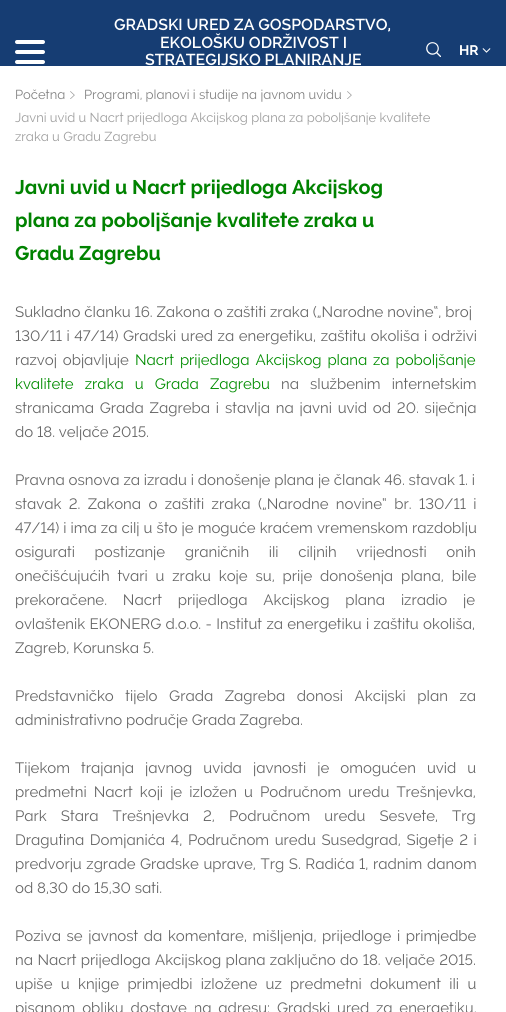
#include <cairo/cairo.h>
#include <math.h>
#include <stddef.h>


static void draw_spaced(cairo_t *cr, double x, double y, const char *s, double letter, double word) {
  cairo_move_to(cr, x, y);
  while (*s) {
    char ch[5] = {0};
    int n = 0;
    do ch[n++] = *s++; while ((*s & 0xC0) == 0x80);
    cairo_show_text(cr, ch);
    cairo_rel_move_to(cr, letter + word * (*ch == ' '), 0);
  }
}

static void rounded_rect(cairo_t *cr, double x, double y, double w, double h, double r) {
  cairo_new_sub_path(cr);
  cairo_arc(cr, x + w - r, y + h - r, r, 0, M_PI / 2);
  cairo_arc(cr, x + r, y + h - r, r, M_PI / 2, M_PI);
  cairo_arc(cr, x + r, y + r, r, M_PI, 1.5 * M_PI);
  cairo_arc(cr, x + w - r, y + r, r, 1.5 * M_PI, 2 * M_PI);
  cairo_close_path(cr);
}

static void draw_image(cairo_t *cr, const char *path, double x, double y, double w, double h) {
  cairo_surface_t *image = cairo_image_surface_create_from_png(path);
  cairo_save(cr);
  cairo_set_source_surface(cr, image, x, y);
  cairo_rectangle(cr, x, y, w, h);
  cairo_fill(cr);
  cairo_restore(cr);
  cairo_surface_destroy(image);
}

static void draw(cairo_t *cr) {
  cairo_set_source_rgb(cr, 1, 1, 1);
  cairo_paint(cr);
  cairo_set_source_rgb(cr, 22 / 255.0, 61 / 255.0, 115 / 255.0);
  cairo_rectangle(cr, 0, 0, 506, 66);
  cairo_fill(cr);
  cairo_set_source_rgb(cr, 1, 1, 1);
  rounded_rect(cr, 15, 60, 30, 4, 2);
  cairo_fill(cr);
  rounded_rect(cr, 15, 40, 30, 4, 2);
  cairo_fill(cr);
  rounded_rect(cr, 15, 50, 30, 4, 2);
  cairo_fill(cr);
  draw_image(cr, "images/1.png", 426, 42, 15, 15);
  draw_image(cr, "images/2.png", 482, 48, 9, 5);
  draw_image(cr, "images/3.png", 70, 91, 5, 8);
  draw_image(cr, "images/3.png", 347, 91, 5, 8);
  cairo_select_font_face(cr, "Raleway SemiBold", CAIRO_FONT_SLANT_NORMAL, CAIRO_FONT_WEIGHT_NORMAL);
  cairo_set_font_size(cr, 16);
  cairo_move_to(cr, 114, 30);
  cairo_show_text(cr, "GRADSKI URED ZA GOSPODARSTVO,");
  cairo_move_to(cr, 160, 48);
  cairo_show_text(cr, "EKOLOŠKU ODRŽIVOST I");
  cairo_move_to(cr, 145, 65);
  cairo_show_text(cr, "STRATEGIJSKO PLANIRANJE");
  cairo_select_font_face(cr, "Raleway", CAIRO_FONT_SLANT_NORMAL, CAIRO_FONT_WEIGHT_BOLD);
  cairo_set_font_size(cr, 14);
  cairo_move_to(cr, 459, 55);
  cairo_show_text(cr, "HR");
  cairo_select_font_face(cr, "Raleway", CAIRO_FONT_SLANT_NORMAL, CAIRO_FONT_WEIGHT_NORMAL);
  cairo_set_font_size(cr, 13);
  cairo_set_source_rgb(cr, 129 / 255.0, 129 / 255.0, 129 / 255.0);
  cairo_move_to(cr, 15, 99);
  cairo_show_text(cr, "Početna");
  cairo_move_to(cr, 84, 99);
  cairo_show_text(cr, "Programi, planovi i studije na javnom uvidu");
  cairo_set_source_rgb(cr, 158 / 255.0, 158 / 255.0, 158 / 255.0);
  cairo_move_to(cr, 15, 122);
  cairo_show_text(cr, "Javni uvid u Nacrt prijedloga Akcijskog plana za poboljšanje kvalitete");
  cairo_move_to(cr, 15, 141);
  cairo_show_text(cr, "zraka u Gradu Zagrebu");
  cairo_select_font_face(cr, "Raleway", CAIRO_FONT_SLANT_NORMAL, CAIRO_FONT_WEIGHT_BOLD);
  cairo_set_font_size(cr, 20);
  cairo_set_source_rgb(cr, 0, 130 / 255.0, 0);
  cairo_move_to(cr, 15, 194);
  cairo_show_text(cr, "Javni uvid u Nacrt prijedloga Akcijskog");
  cairo_move_to(cr, 15, 227);
  cairo_show_text(cr, "plana za poboljšanje kvalitete zraka u");
  cairo_move_to(cr, 15, 260);
  cairo_show_text(cr, "Gradu Zagrebu");
  cairo_select_font_face(cr, "Raleway", CAIRO_FONT_SLANT_NORMAL, CAIRO_FONT_WEIGHT_NORMAL);
  cairo_set_font_size(cr, 15);
  cairo_set_source_rgb(cr, 102 / 255.0, 102 / 255.0, 102 / 255.0);
  cairo_move_to(cr, 15, 317);
  cairo_show_text(cr, "Sukladno članku 16. Zakona o zaštiti zraka („Narodne novine“, broj");
  draw_spaced(cr, 15, 341, "130/11 i 47/14) Gradski ured za energetiku, zaštitu okoliša i održivi", 0, 0.75);
  draw_spaced(cr, 15, 365, "razvoj objavljuje", 0, 2);
  cairo_set_source_rgb(cr, 0, 140 / 255.0, 0);
  draw_spaced(cr, 135, 365, "Nacrt prijedloga Akcijskog plana za poboljšanje", 0, 2);
  draw_spaced(cr, 15, 389, "kvalitete zraka u Grada Zagrebu", 0, 7.25);
  cairo_set_source_rgb(cr, 102 / 255.0, 102 / 255.0, 102 / 255.0);
  draw_spaced(cr, 281, 389, "na službenim internetskim", 0, 7.25);
  draw_spaced(cr, 15, 413, "stranicama Grada Zagreba i stavlja na javni uvid od 20. siječnja", 0, 2);
  cairo_move_to(cr, 15, 437);
  cairo_show_text(cr, "do 18. veljače 2015.");
  cairo_move_to(cr, 15, 485);
  cairo_show_text(cr, "Pravna osnova za izradu i donošenje plana je članak 46. stavak 1. i");
  draw_spaced(cr, 15, 509, "stavak 2. Zakona o zaštiti zraka („Narodne novine“ br. 130/11 i", 0, 3.5);
  draw_spaced(cr, 15, 533, "47/14) i ima za cilj u što je moguće kraćem vremenskom razdoblju", 0, 0.25);
  draw_spaced(cr, 15, 557, "osigurati postizanje graničnih ili ciljnih vrijednosti onih", 0, 15.75);
  draw_spaced(cr, 15, 581, "onečišćujućih tvari u zraku koje su, prije donošenja plana, bile", 0, 4);
  draw_spaced(cr, 15, 605, "prekoračene. Nacrt prijedloga Akcijskog plana izradio je", 0, 12);
  draw_spaced(cr, 15, 629, "ovlaštenik EKONERG d.o.o. - Institut za energetiku i zaštitu okoliša,", 0, 0.5);
  cairo_move_to(cr, 15, 653);
  cairo_show_text(cr, "Zagreb, Korunska 5.");
  draw_spaced(cr, 15, 701, "Predstavničko tijelo Grada Zagreba donosi Akcijski plan za", 0, 7.75);
  cairo_move_to(cr, 15, 725);
  cairo_show_text(cr, "administrativno područje Grada Zagreba.");
  draw_spaced(cr, 15, 773, "Tijekom trajanja javnog uvida javnosti je omogućen uvid u", 0, 7.25);
  draw_spaced(cr, 15, 797, "predmetni Nacrt koji je izložen u Područnom uredu Trešnjevka,", 0, 3.25);
  draw_spaced(cr, 15, 821, "Park Stara Trešnjevka 2, Područnom uredu Sesvete, Trg", 0, 10.25);
  draw_spaced(cr, 15, 845, "Dragutina Domjanića 4, Područnom uredu Susedgrad, Sigetje 2 i", 0, 1.75);
  draw_spaced(cr, 15, 869, "predvorju zgrade Gradske uprave, Trg S. Radića 1, radnim danom", 0, 0.75);
  cairo_move_to(cr, 15, 893);
  cairo_show_text(cr, "od 8,30 do 15,30 sati.");
  draw_spaced(cr, 15, 941, "Poziva se javnost da komentare, mišljenja, prijedloge i primjedbe", 0, 1.75);
  draw_spaced(cr, 15, 965, "na Nacrt prijedloga Akcijskog plana zaključno do 18. veljače 2015.", 0, 0.6);
  draw_spaced(cr, 15, 989, "upiše u knjige primjedbi izložene uz predmetni dokument ili u", 0, 4.5);
  draw_spaced(cr, 15, 1013, "pisanom obliku dostave na adresu: Gradski ured za energetiku,", 0, 3);
}

int main(void) {
  cairo_surface_t *surface = cairo_image_surface_create(CAIRO_FORMAT_RGB24, 506, 1012);
  cairo_t *cr = cairo_create(surface);
  cairo_font_options_t *options = cairo_font_options_create();
  cairo_font_options_set_hint_metrics(options, CAIRO_HINT_METRICS_OFF);
  cairo_font_options_set_hint_style(options, CAIRO_HINT_STYLE_NONE);
  cairo_set_font_options(cr, options);
  cairo_set_miter_limit(cr, 4);
  draw(cr);
  cairo_surface_write_to_png(surface, "out.png");
  cairo_font_options_destroy(options);
  cairo_destroy(cr);
  cairo_surface_destroy(surface);
  return 0;
}
